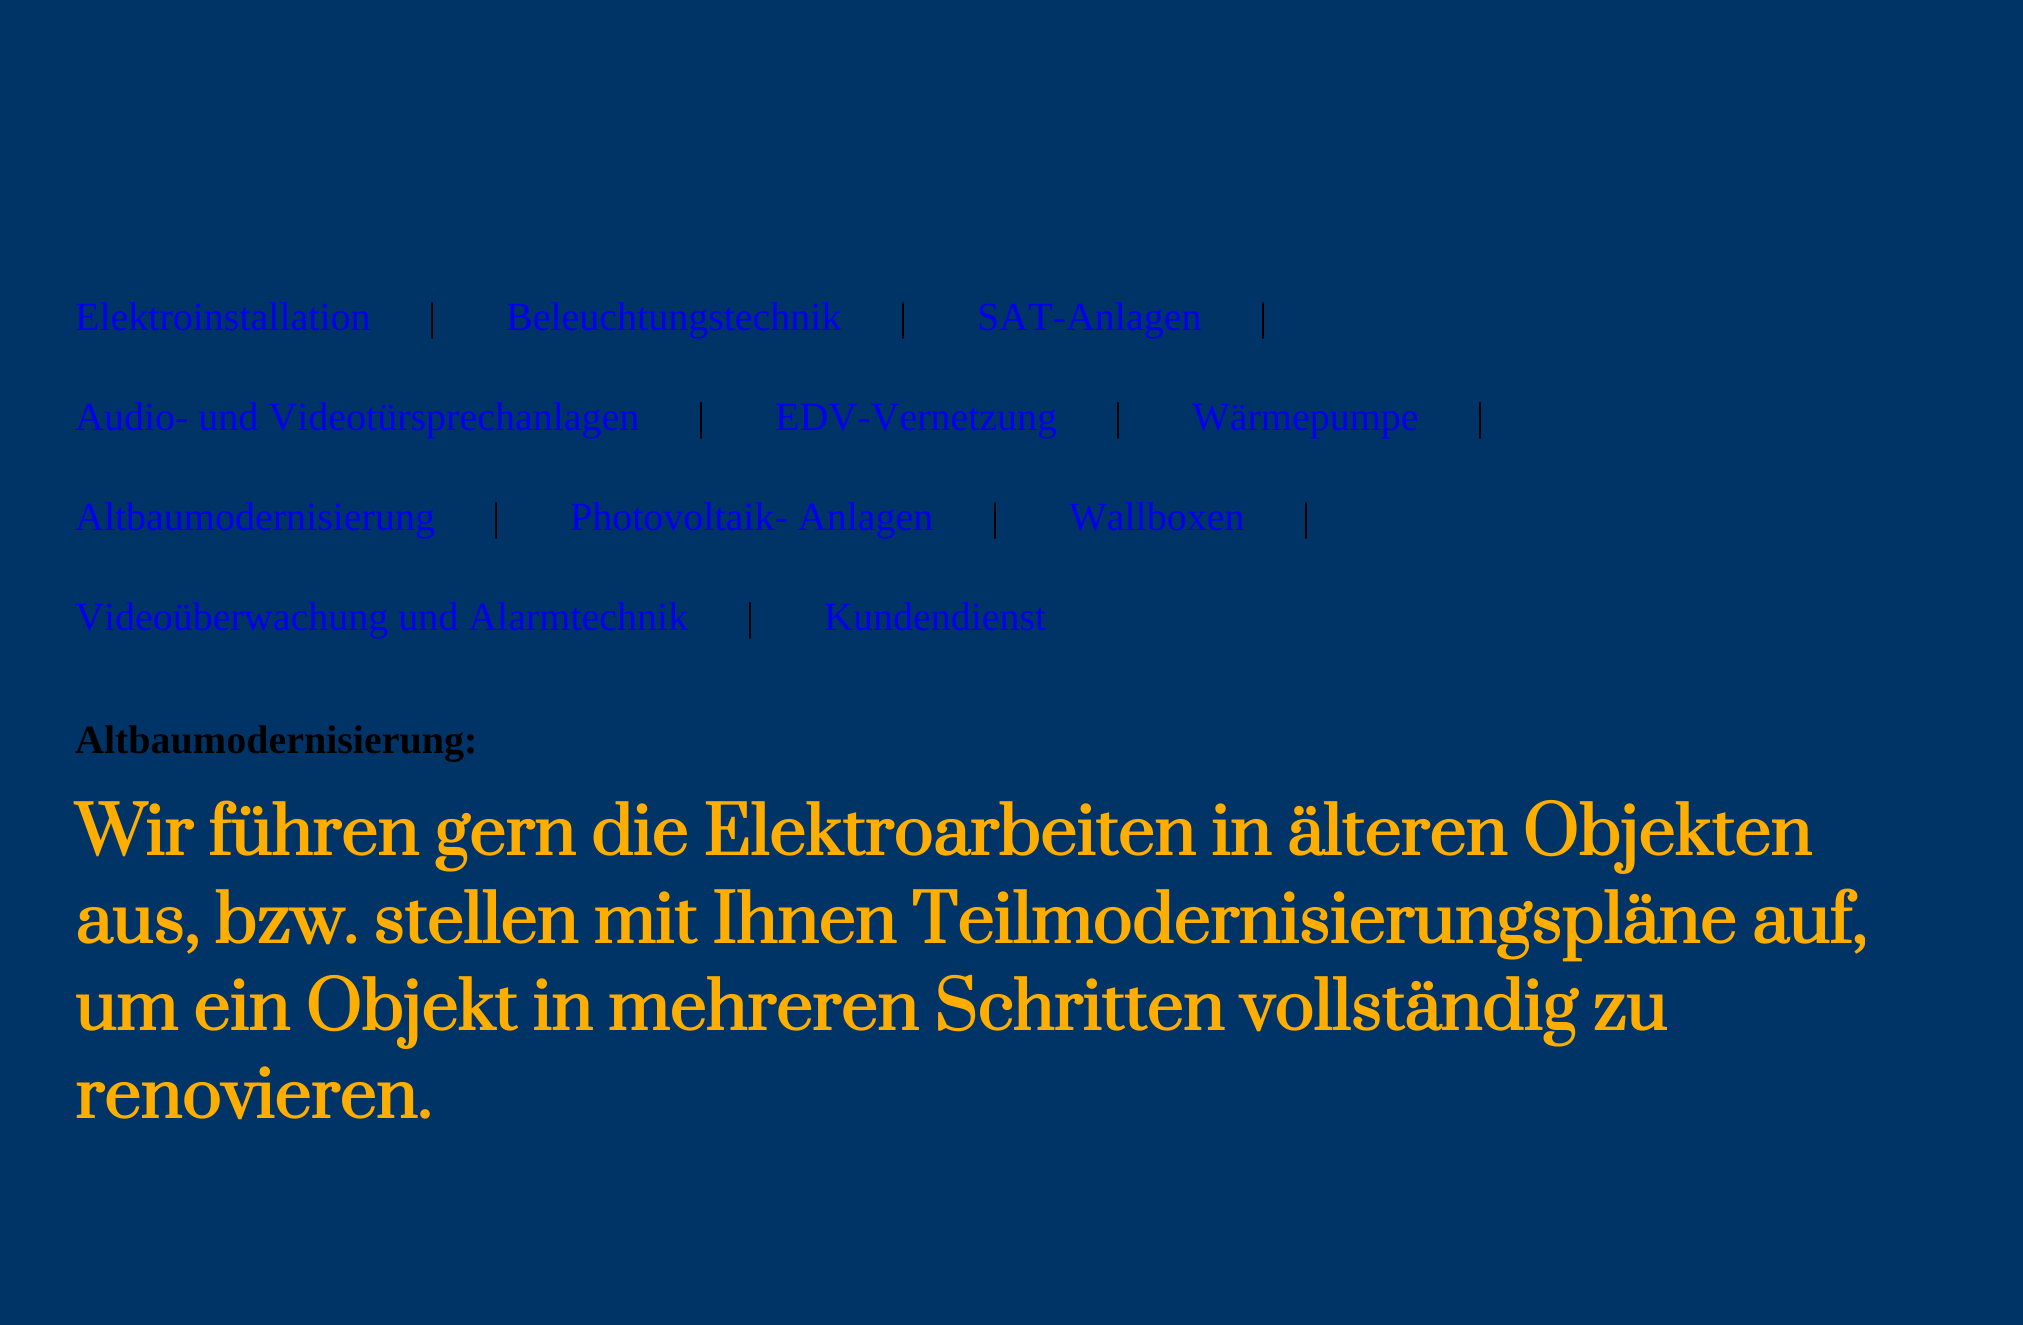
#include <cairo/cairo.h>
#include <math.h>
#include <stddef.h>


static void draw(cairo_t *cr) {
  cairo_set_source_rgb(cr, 0, 51 / 255.0, 102 / 255.0);
  cairo_paint(cr);
  cairo_select_font_face(cr, "Liberation Serif", CAIRO_FONT_SLANT_NORMAL, CAIRO_FONT_WEIGHT_NORMAL);
  cairo_set_font_size(cr, 40);
  cairo_set_source_rgb(cr, 0, 0, 238 / 255.0);
  cairo_move_to(cr, 75, 330);
  cairo_show_text(cr, "Elektroinstallation");
  cairo_set_source_rgb(cr, 0, 0, 0);
  cairo_move_to(cr, 428, 330);
  cairo_show_text(cr, "|");
  cairo_set_source_rgb(cr, 0, 0, 238 / 255.0);
  cairo_move_to(cr, 506, 330);
  cairo_show_text(cr, "Beleuchtungstechnik");
  cairo_set_source_rgb(cr, 0, 0, 0);
  cairo_move_to(cr, 899, 330);
  cairo_show_text(cr, "|");
  cairo_set_source_rgb(cr, 0, 0, 238 / 255.0);
  cairo_move_to(cr, 977, 330);
  cairo_show_text(cr, "SAT-Anlagen");
  cairo_set_source_rgb(cr, 0, 0, 0);
  cairo_move_to(cr, 1259, 330);
  cairo_show_text(cr, "|");
  cairo_set_source_rgb(cr, 0, 0, 238 / 255.0);
  cairo_move_to(cr, 75, 430);
  cairo_show_text(cr, "Audio- und Videotürsprechanlagen");
  cairo_set_source_rgb(cr, 0, 0, 0);
  cairo_move_to(cr, 697, 430);
  cairo_show_text(cr, "|");
  cairo_set_source_rgb(cr, 0, 0, 238 / 255.0);
  cairo_move_to(cr, 775, 430);
  cairo_show_text(cr, "EDV-Vernetzung");
  cairo_set_source_rgb(cr, 0, 0, 0);
  cairo_move_to(cr, 1114, 430);
  cairo_show_text(cr, "|");
  cairo_set_source_rgb(cr, 0, 0, 238 / 255.0);
  cairo_move_to(cr, 1192, 430);
  cairo_show_text(cr, "Wärmepumpe");
  cairo_set_source_rgb(cr, 0, 0, 0);
  cairo_move_to(cr, 1476, 430);
  cairo_show_text(cr, "|");
  cairo_set_source_rgb(cr, 0, 0, 238 / 255.0);
  cairo_move_to(cr, 75, 530);
  cairo_show_text(cr, "Altbaumodernisierung");
  cairo_set_source_rgb(cr, 0, 0, 0);
  cairo_move_to(cr, 492, 530);
  cairo_show_text(cr, "|");
  cairo_set_source_rgb(cr, 0, 0, 238 / 255.0);
  cairo_move_to(cr, 570, 530);
  cairo_show_text(cr, "Photovoltaik- Anlagen");
  cairo_set_source_rgb(cr, 0, 0, 0);
  cairo_move_to(cr, 991, 530);
  cairo_show_text(cr, "|");
  cairo_set_source_rgb(cr, 0, 0, 238 / 255.0);
  cairo_move_to(cr, 1069, 530);
  cairo_show_text(cr, "Wallboxen");
  cairo_set_source_rgb(cr, 0, 0, 0);
  cairo_move_to(cr, 1302, 530);
  cairo_show_text(cr, "|");
  cairo_set_source_rgb(cr, 0, 0, 238 / 255.0);
  cairo_move_to(cr, 75, 630);
  cairo_show_text(cr, "Videoüberwachung und Alarmtechnik");
  cairo_set_source_rgb(cr, 0, 0, 0);
  cairo_move_to(cr, 746, 630);
  cairo_show_text(cr, "|");
  cairo_set_source_rgb(cr, 0, 0, 238 / 255.0);
  cairo_move_to(cr, 824, 630);
  cairo_show_text(cr, "Kundendienst");
  cairo_select_font_face(cr, "Liberation Serif", CAIRO_FONT_SLANT_NORMAL, CAIRO_FONT_WEIGHT_BOLD);
  cairo_set_source_rgb(cr, 0, 0, 0);
  cairo_move_to(cr, 75, 753);
  cairo_show_text(cr, "Altbaumodernisierung:");
  cairo_select_font_face(cr, "Prata", CAIRO_FONT_SLANT_NORMAL, CAIRO_FONT_WEIGHT_BOLD);
  cairo_set_font_size(cr, 65);
  cairo_set_source_rgb(cr, 1, 174 / 255.0, 0);
  cairo_move_to(cr, 75, 855);
  cairo_show_text(cr, "Wir führen gern die Elektroarbeiten in älteren Objekten");
  cairo_move_to(cr, 75, 943);
  cairo_show_text(cr, "aus, bzw. stellen mit Ihnen Teilmodernisierungspläne auf,");
  cairo_move_to(cr, 75, 1030);
  cairo_show_text(cr, "um ein Objekt in mehreren Schritten vollständig zu");
  cairo_move_to(cr, 75, 1118);
  cairo_show_text(cr, "renovieren.");
}

int main(void) {
  cairo_surface_t *surface = cairo_image_surface_create(CAIRO_FORMAT_RGB24, 2023, 1325);
  cairo_t *cr = cairo_create(surface);
  cairo_font_options_t *options = cairo_font_options_create();
  cairo_font_options_set_hint_metrics(options, CAIRO_HINT_METRICS_OFF);
  cairo_font_options_set_hint_style(options, CAIRO_HINT_STYLE_NONE);
  cairo_set_font_options(cr, options);
  cairo_set_miter_limit(cr, 4);
  draw(cr);
  cairo_surface_write_to_png(surface, "out.png");
  cairo_font_options_destroy(options);
  cairo_destroy(cr);
  cairo_surface_destroy(surface);
  return 0;
}
